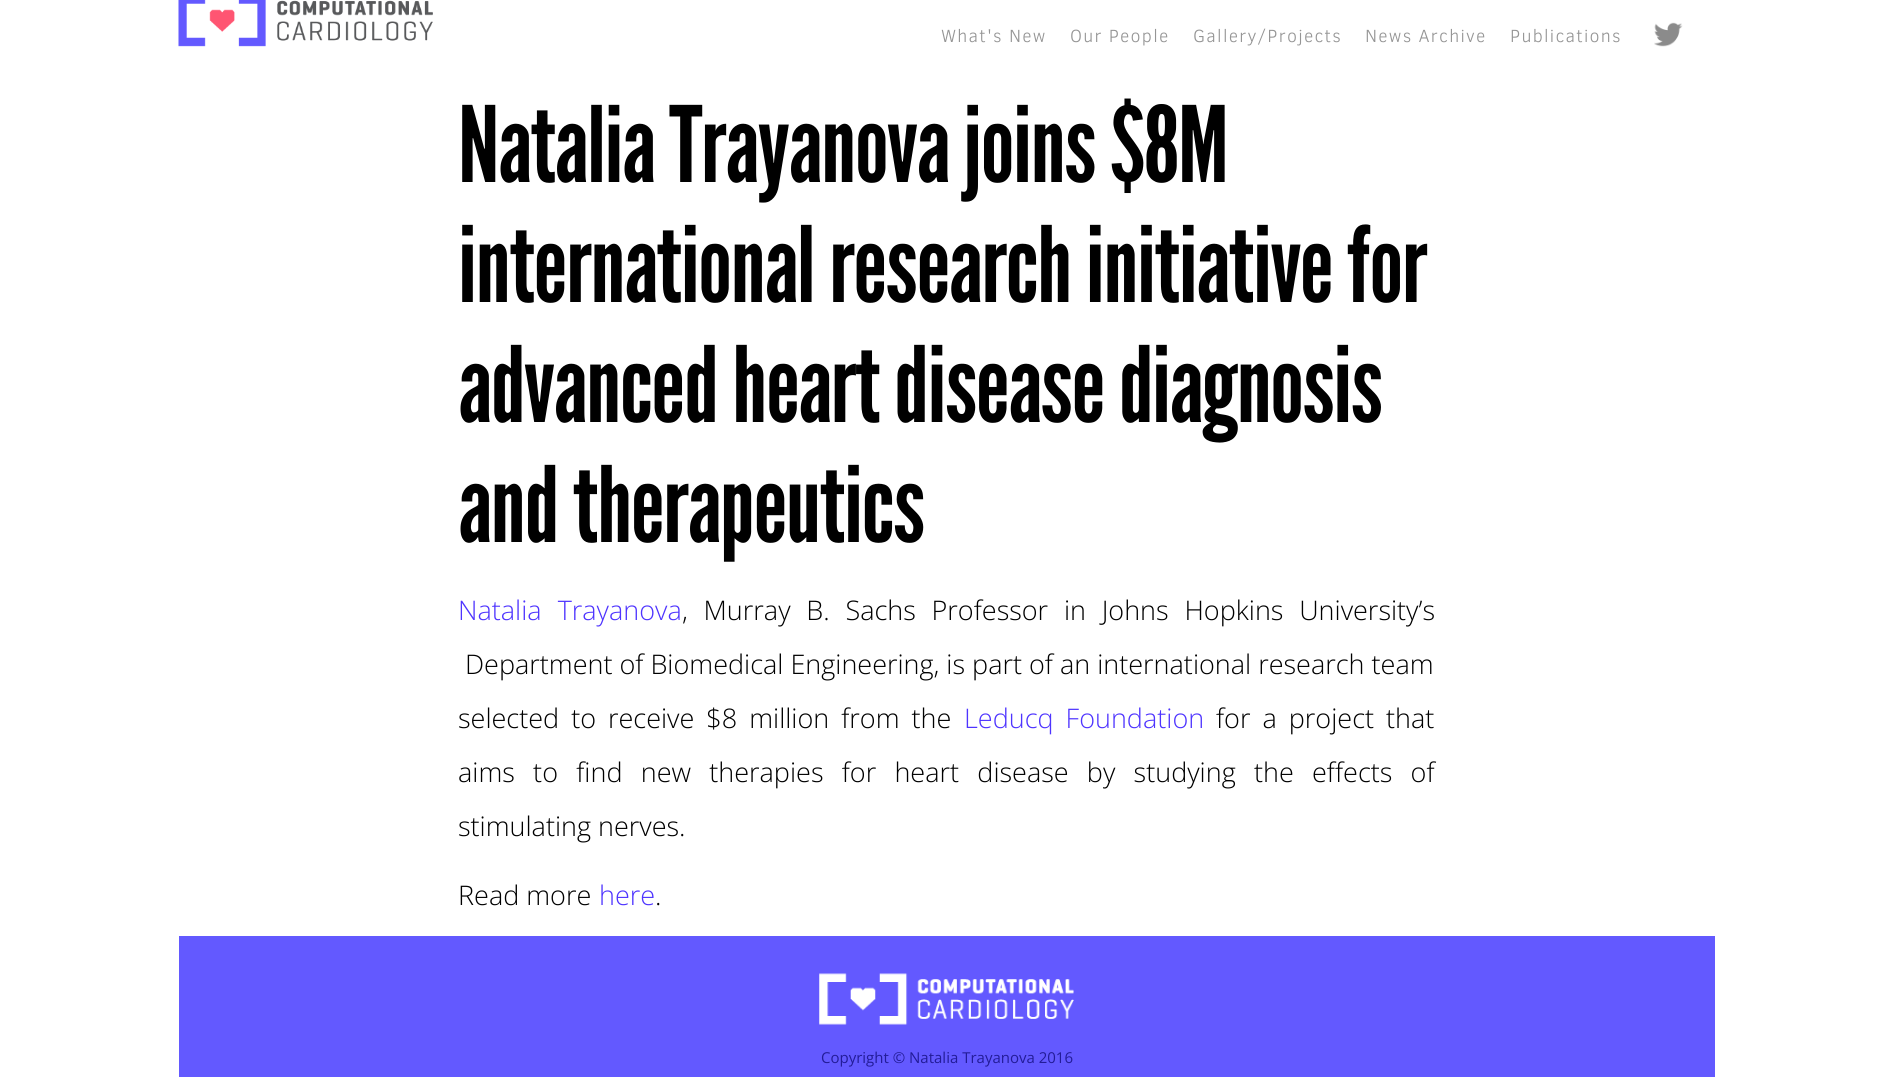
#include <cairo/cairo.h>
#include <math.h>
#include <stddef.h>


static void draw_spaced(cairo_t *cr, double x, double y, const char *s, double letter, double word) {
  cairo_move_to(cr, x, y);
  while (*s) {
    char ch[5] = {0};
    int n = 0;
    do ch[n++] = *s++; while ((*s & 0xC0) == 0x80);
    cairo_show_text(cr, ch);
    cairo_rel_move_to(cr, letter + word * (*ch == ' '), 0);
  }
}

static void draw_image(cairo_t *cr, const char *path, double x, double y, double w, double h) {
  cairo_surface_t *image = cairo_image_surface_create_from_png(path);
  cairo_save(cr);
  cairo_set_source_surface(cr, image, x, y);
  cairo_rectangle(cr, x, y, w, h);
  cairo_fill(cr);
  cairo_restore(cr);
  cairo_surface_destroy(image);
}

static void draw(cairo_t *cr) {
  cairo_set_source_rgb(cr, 1, 1, 1);
  cairo_paint(cr);
  draw_image(cr, "images/1.png", 178, 0, 255, 47);
  draw_image(cr, "images/2.png", 1654, 22, 29, 25);
  cairo_set_source_rgb(cr, 99 / 255.0, 89 / 255.0, 1);
  cairo_rectangle(cr, 179, 936, 1536, 141);
  cairo_fill(cr);
  draw_image(cr, "images/3.png", 819, 973, 255, 52);
  cairo_select_font_face(cr, "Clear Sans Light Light", CAIRO_FONT_SLANT_NORMAL, CAIRO_FONT_WEIGHT_NORMAL);
  cairo_set_font_size(cr, 18);
  cairo_set_source_rgb(cr, 149 / 255.0, 149 / 255.0, 149 / 255.0);
  draw_spaced(cr, 941, 42, "What's New", 1.25, 0);
  draw_spaced(cr, 1070, 42, "Our People", 1.25, 0);
  draw_spaced(cr, 1193, 42, "Gallery/Projects", 1.25, 0);
  draw_spaced(cr, 1365, 42, "News Archive", 1.25, 0);
  draw_spaced(cr, 1510, 42, "Publications", 1.25, 0);
  cairo_select_font_face(cr, "League Gothic", CAIRO_FONT_SLANT_NORMAL, CAIRO_FONT_WEIGHT_NORMAL);
  cairo_set_font_size(cr, 105);
  cairo_set_source_rgb(cr, 0, 0, 0);
  draw_spaced(cr, 458, 182, "Natalia Trayanova joins $8M", -1.5, 0);
  draw_spaced(cr, 458, 302, "international research initiative for", -1.5, 0);
  draw_spaced(cr, 458, 422, "advanced heart disease diagnosis", -1.5, 0);
  draw_spaced(cr, 458, 542, "and therapeutics", -1.5, 0);
  cairo_select_font_face(cr, "Open Sans Light", CAIRO_FONT_SLANT_NORMAL, CAIRO_FONT_WEIGHT_NORMAL);
  cairo_set_font_size(cr, 27);
  cairo_set_source_rgb(cr, 78 / 255.0, 52 / 255.0, 1);
  draw_spaced(cr, 458, 620, "Natalia Trayanova", 0, 9);
  cairo_set_source_rgb(cr, 0, 0, 0);
  draw_spaced(cr, 682, 620, ", Murray B. Sachs Professor in Johns Hopkins University’s", 0, 8.75);
  cairo_move_to(cr, 465, 674);
  cairo_show_text(cr, "Department of Biomedical Engineering, is part of an international research team");
  draw_spaced(cr, 458, 728, "selected to receive $8 million from the", 0, 5);
  cairo_set_source_rgb(cr, 78 / 255.0, 52 / 255.0, 1);
  draw_spaced(cr, 964, 728, "Leducq Foundation", 0, 5);
  cairo_set_source_rgb(cr, 0, 0, 0);
  draw_spaced(cr, 1216, 728, "for a project that", 0, 5);
  draw_spaced(cr, 458, 782, "aims to find new therapies for heart disease by studying the effects of", 0, 11.25);
  cairo_move_to(cr, 458, 836);
  cairo_show_text(cr, "stimulating nerves.");
  cairo_move_to(cr, 458, 905);
  cairo_show_text(cr, "Read more");
  cairo_set_source_rgb(cr, 78 / 255.0, 52 / 255.0, 1);
  cairo_move_to(cr, 599, 905);
  cairo_show_text(cr, "here");
  cairo_set_source_rgb(cr, 0, 0, 0);
  cairo_move_to(cr, 655, 905);
  cairo_show_text(cr, ".");
  cairo_select_font_face(cr, "Open Sans", CAIRO_FONT_SLANT_NORMAL, CAIRO_FONT_WEIGHT_NORMAL);
  cairo_set_font_size(cr, 15);
  cairo_set_source_rgb(cr, 35 / 255.0, 28 / 255.0, 152 / 255.0);
  cairo_move_to(cr, 821, 1063);
  cairo_show_text(cr, "Copyright © Natalia Trayanova 2016");
}

int main(void) {
  cairo_surface_t *surface = cairo_image_surface_create(CAIRO_FORMAT_RGB24, 1893, 1077);
  cairo_t *cr = cairo_create(surface);
  cairo_font_options_t *options = cairo_font_options_create();
  cairo_font_options_set_hint_metrics(options, CAIRO_HINT_METRICS_OFF);
  cairo_font_options_set_hint_style(options, CAIRO_HINT_STYLE_NONE);
  cairo_set_font_options(cr, options);
  cairo_set_miter_limit(cr, 4);
  draw(cr);
  cairo_surface_write_to_png(surface, "out.png");
  cairo_font_options_destroy(options);
  cairo_destroy(cr);
  cairo_surface_destroy(surface);
  return 0;
}
